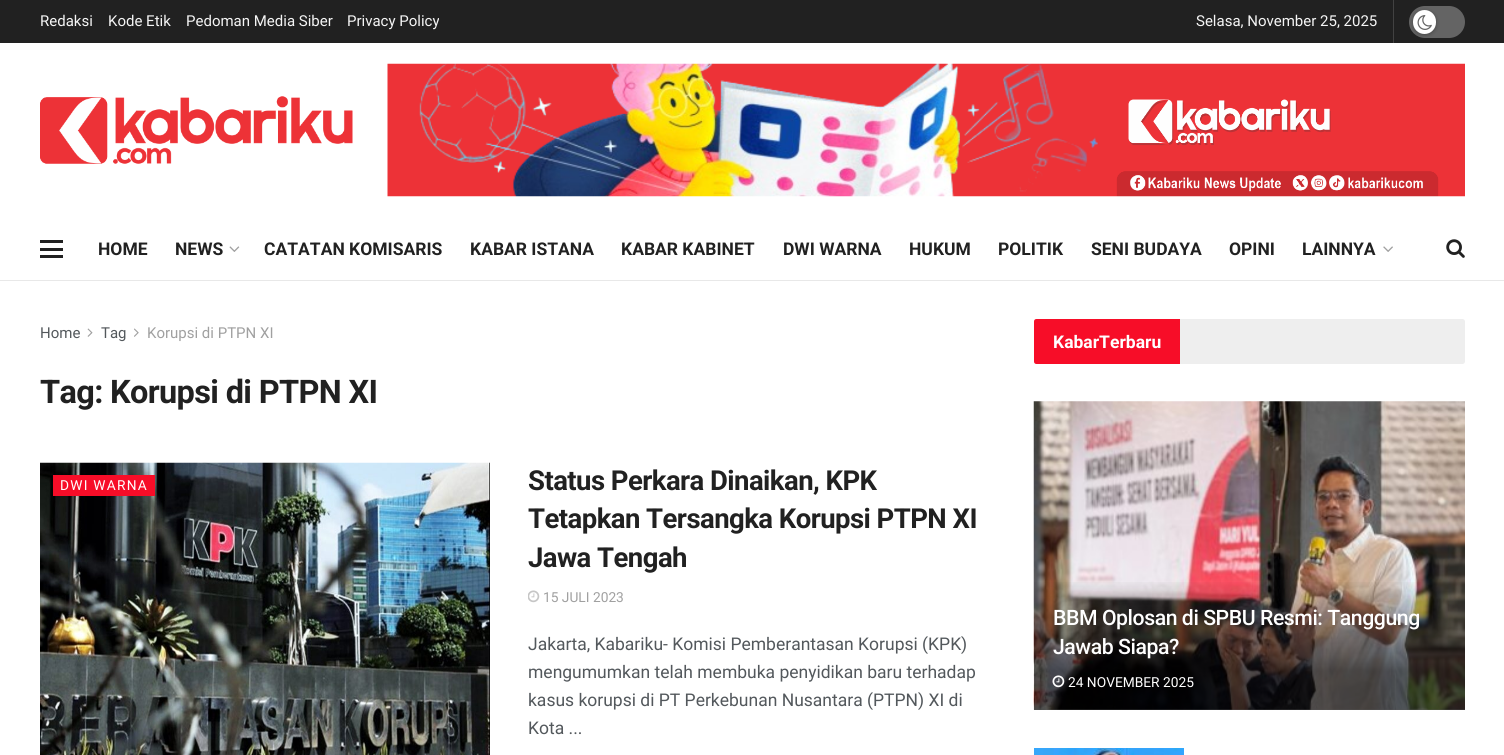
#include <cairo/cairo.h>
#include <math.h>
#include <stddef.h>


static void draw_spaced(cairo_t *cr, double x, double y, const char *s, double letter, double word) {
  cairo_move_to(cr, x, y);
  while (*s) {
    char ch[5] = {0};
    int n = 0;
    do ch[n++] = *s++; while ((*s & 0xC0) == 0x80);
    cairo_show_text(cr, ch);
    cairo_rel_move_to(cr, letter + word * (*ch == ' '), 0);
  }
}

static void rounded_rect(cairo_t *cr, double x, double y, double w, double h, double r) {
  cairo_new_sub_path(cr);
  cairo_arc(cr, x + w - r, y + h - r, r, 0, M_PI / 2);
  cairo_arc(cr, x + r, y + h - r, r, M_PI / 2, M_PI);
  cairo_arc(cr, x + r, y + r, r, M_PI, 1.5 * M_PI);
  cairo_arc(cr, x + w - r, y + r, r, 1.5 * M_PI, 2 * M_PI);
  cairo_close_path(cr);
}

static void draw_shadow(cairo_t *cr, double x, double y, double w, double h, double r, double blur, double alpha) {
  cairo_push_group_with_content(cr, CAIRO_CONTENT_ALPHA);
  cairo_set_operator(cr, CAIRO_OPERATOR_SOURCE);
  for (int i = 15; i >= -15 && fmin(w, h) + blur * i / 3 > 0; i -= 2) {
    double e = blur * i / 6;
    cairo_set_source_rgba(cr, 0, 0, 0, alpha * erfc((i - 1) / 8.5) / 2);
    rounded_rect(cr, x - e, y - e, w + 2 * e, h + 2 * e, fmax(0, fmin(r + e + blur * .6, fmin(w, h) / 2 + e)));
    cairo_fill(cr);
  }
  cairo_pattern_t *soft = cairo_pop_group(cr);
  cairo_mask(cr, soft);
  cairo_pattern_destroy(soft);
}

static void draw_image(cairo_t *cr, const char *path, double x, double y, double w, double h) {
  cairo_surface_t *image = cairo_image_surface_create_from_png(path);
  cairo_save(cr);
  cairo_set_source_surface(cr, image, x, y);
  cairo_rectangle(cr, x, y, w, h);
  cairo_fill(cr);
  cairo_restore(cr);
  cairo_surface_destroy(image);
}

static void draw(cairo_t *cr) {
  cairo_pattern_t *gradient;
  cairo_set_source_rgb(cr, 1, 1, 1);
  cairo_paint(cr);
  cairo_set_source_rgb(cr, 33 / 255.0, 33 / 255.0, 33 / 255.0);
  cairo_rectangle(cr, 0, 0, 1504, 43);
  cairo_fill(cr);
  cairo_set_source_rgb(cr, 66 / 255.0, 66 / 255.0, 66 / 255.0);
  cairo_rectangle(cr, 1393, 0, 1, 43);
  cairo_fill(cr);
  cairo_set_source_rgb(cr, 100 / 255.0, 100 / 255.0, 100 / 255.0);
  rounded_rect(cr, 1409, 6, 56, 32, 16);
  cairo_fill(cr);
  cairo_set_source_rgb(cr, 0, 0, 0);
  draw_shadow(cr, 1413, 11, 23, 24, 11.5, 2, 0.3);
  cairo_set_source_rgb(cr, 1, 1, 1);
  rounded_rect(cr, 1413, 10, 23, 24, 11.5);
  cairo_fill(cr);
  draw_image(cr, "images/1.png", 1417, 15, 15, 15);
  draw_image(cr, "images/2.png", 40, 96, 313, 68);
  draw_image(cr, "images/3.png", 387, 63, 1078, 134);
  cairo_set_source_rgb(cr, 232 / 255.0, 232 / 255.0, 232 / 255.0);
  cairo_rectangle(cr, 0, 280, 1504, 1);
  cairo_fill(cr);
  cairo_set_source_rgb(cr, 33 / 255.0, 33 / 255.0, 33 / 255.0);
  cairo_rectangle(cr, 40, 240, 23, 3);
  cairo_fill(cr);
  cairo_rectangle(cr, 40, 248, 23, 3);
  cairo_fill(cr);
  cairo_rectangle(cr, 40, 255, 23, 3);
  cairo_fill(cr);
  draw_image(cr, "images/4.png", 229, 246, 11, 6);
  draw_image(cr, "images/5.png", 1383, 246, 10, 6);
  draw_image(cr, "images/6.png", 1446, 239, 19, 19);
  draw_image(cr, "images/7.png", 87, 328, 6, 9);
  draw_image(cr, "images/8.png", 134, 328, 5, 9);
  draw_image(cr, "images/9.png", 40, 462, 450, 293);
  cairo_set_source_rgb(cr, 247 / 255.0, 13 / 255.0, 40 / 255.0);
  cairo_rectangle(cr, 53, 475, 102, 21);
  cairo_fill(cr);
  draw_image(cr, "images/10.png", 528, 590, 12, 13);
  cairo_set_source_rgb(cr, 238 / 255.0, 238 / 255.0, 238 / 255.0);
  rounded_rect(cr, 1034, 319, 431, 45, 2.5);
  cairo_fill(cr);
  cairo_set_source_rgb(cr, 247 / 255.0, 13 / 255.0, 40 / 255.0);
  cairo_new_path(cr);
  cairo_move_to(cr, 1036.5, 319);
  cairo_line_to(cr, 1180, 319);
  cairo_line_to(cr, 1180, 364);
  cairo_line_to(cr, 1036.5, 364);
  cairo_curve_to(cr, 1035, 364, 1034, 363, 1034, 361.5);
  cairo_line_to(cr, 1034, 321.5);
  cairo_curve_to(cr, 1034, 320, 1035, 319, 1036.5, 319);
  cairo_close_path(cr);
  cairo_fill(cr);
  draw_image(cr, "images/11.png", 1033, 401, 432, 309);
  gradient = cairo_pattern_create_linear(1249, 579, 1249, 710);
  cairo_pattern_add_color_stop_rgba(gradient, 0, 0, 0, 0, 0);
  cairo_pattern_add_color_stop_rgba(gradient, 0.7, 0, 0, 0, 0.65);
  cairo_set_source(cr, gradient);
  cairo_pattern_destroy(gradient);
  cairo_rectangle(cr, 1034, 582, 431, 128);
  cairo_fill(cr);
  draw_image(cr, "images/12.png", 1052, 675, 13, 13);
  draw_image(cr, "images/13.png", 1034, 748, 150, 7);
  cairo_select_font_face(cr, "Roboto", CAIRO_FONT_SLANT_NORMAL, CAIRO_FONT_WEIGHT_NORMAL);
  cairo_set_font_size(cr, 15);
  cairo_set_source_rgb(cr, 245 / 255.0, 245 / 255.0, 245 / 255.0);
  cairo_move_to(cr, 40, 26);
  cairo_show_text(cr, "Redaksi");
  cairo_move_to(cr, 108, 26);
  cairo_show_text(cr, "Kode Etik");
  cairo_move_to(cr, 186, 26);
  cairo_show_text(cr, "Pedoman Media Siber");
  cairo_move_to(cr, 347, 26);
  cairo_show_text(cr, "Privacy Policy");
  cairo_move_to(cr, 1196, 26);
  cairo_show_text(cr, "Selasa, November 25, 2025");
  cairo_select_font_face(cr, "Roboto", CAIRO_FONT_SLANT_NORMAL, CAIRO_FONT_WEIGHT_BOLD);
  cairo_set_font_size(cr, 17.5);
  cairo_set_source_rgb(cr, 33 / 255.0, 33 / 255.0, 33 / 255.0);
  cairo_move_to(cr, 98, 255);
  cairo_show_text(cr, "HOME");
  cairo_move_to(cr, 175, 255);
  cairo_show_text(cr, "NEWS");
  cairo_move_to(cr, 264, 255);
  cairo_show_text(cr, "CATATAN KOMISARIS");
  cairo_move_to(cr, 470, 255);
  cairo_show_text(cr, "KABAR ISTANA");
  cairo_move_to(cr, 621, 255);
  cairo_show_text(cr, "KABAR KABINET");
  cairo_move_to(cr, 783, 255);
  cairo_show_text(cr, "DWI WARNA");
  cairo_move_to(cr, 909, 255);
  cairo_show_text(cr, "HUKUM");
  cairo_move_to(cr, 998, 255);
  cairo_show_text(cr, "POLITIK");
  cairo_move_to(cr, 1091, 255);
  cairo_show_text(cr, "SENI BUDAYA");
  cairo_move_to(cr, 1229, 255);
  cairo_show_text(cr, "OPINI");
  cairo_move_to(cr, 1302, 255);
  cairo_show_text(cr, "LAINNYA");
  cairo_select_font_face(cr, "Roboto", CAIRO_FONT_SLANT_NORMAL, CAIRO_FONT_WEIGHT_NORMAL);
  cairo_set_font_size(cr, 15);
  cairo_set_source_rgb(cr, 83 / 255.0, 88 / 255.0, 92 / 255.0);
  cairo_move_to(cr, 40, 338);
  cairo_show_text(cr, "Home");
  cairo_move_to(cr, 101, 338);
  cairo_show_text(cr, "Tag");
  cairo_set_source_rgb(cr, 160 / 255.0, 160 / 255.0, 160 / 255.0);
  cairo_move_to(cr, 147, 338);
  cairo_show_text(cr, "Korupsi di PTPN XI");
  cairo_select_font_face(cr, "Roboto", CAIRO_FONT_SLANT_NORMAL, CAIRO_FONT_WEIGHT_BOLD);
  cairo_set_font_size(cr, 32.5);
  cairo_set_source_rgb(cr, 33 / 255.0, 33 / 255.0, 33 / 255.0);
  draw_spaced(cr, 40, 403, "Tag: Korupsi di PTPN XI", -0.65, 0);
  cairo_select_font_face(cr, "Roboto", CAIRO_FONT_SLANT_NORMAL, CAIRO_FONT_WEIGHT_NORMAL);
  cairo_set_font_size(cr, 13.75);
  cairo_set_source_rgb(cr, 1, 1, 1);
  draw_spaced(cr, 60, 490, "DWI WARNA", 1.25, 0);
  cairo_select_font_face(cr, "Roboto", CAIRO_FONT_SLANT_NORMAL, CAIRO_FONT_WEIGHT_BOLD);
  cairo_set_font_size(cr, 27.5);
  cairo_set_source_rgb(cr, 33 / 255.0, 33 / 255.0, 33 / 255.0);
  draw_spaced(cr, 528, 490, "Status Perkara Dinaikan, KPK", -0.55, 0);
  draw_spaced(cr, 528, 528, "Tetapkan Tersangka Korupsi PTPN XI", -0.55, 0);
  draw_spaced(cr, 528, 567, "Jawa Tengah", -0.55, 0);
  cairo_select_font_face(cr, "Roboto", CAIRO_FONT_SLANT_NORMAL, CAIRO_FONT_WEIGHT_NORMAL);
  cairo_set_font_size(cr, 13.75);
  cairo_set_source_rgb(cr, 160 / 255.0, 160 / 255.0, 160 / 255.0);
  cairo_move_to(cr, 543, 602);
  cairo_show_text(cr, "15 JULI 2023");
  cairo_set_font_size(cr, 17.5);
  cairo_set_source_rgb(cr, 83 / 255.0, 88 / 255.0, 92 / 255.0);
  cairo_move_to(cr, 528, 650);
  cairo_show_text(cr, "Jakarta, Kabariku- Komisi Pemberantasan Korupsi (KPK)");
  cairo_move_to(cr, 528, 678);
  cairo_show_text(cr, "mengumumkan telah membuka penyidikan baru terhadap");
  cairo_move_to(cr, 528, 706);
  cairo_show_text(cr, "kasus korupsi di PT Perkebunan Nusantara (PTPN) XI di");
  cairo_move_to(cr, 528, 734);
  cairo_show_text(cr, "Kota ...");
  cairo_select_font_face(cr, "Roboto", CAIRO_FONT_SLANT_NORMAL, CAIRO_FONT_WEIGHT_BOLD);
  cairo_set_source_rgb(cr, 1, 1, 1);
  cairo_move_to(cr, 1053, 348);
  cairo_show_text(cr, "KabarTerbaru");
  cairo_select_font_face(cr, "Roboto Medium", CAIRO_FONT_SLANT_NORMAL, CAIRO_FONT_WEIGHT_NORMAL);
  cairo_set_font_size(cr, 21.25);
  draw_spaced(cr, 1053, 625, "BBM Oplosan di SPBU Resmi: Tanggung", -0.45, 0);
  draw_spaced(cr, 1053, 654, "Jawab Siapa?", -0.45, 0);
  cairo_select_font_face(cr, "Roboto", CAIRO_FONT_SLANT_NORMAL, CAIRO_FONT_WEIGHT_NORMAL);
  cairo_set_font_size(cr, 13.75);
  cairo_move_to(cr, 1068, 687);
  cairo_show_text(cr, "24 NOVEMBER 2025");
}

int main(void) {
  cairo_surface_t *surface = cairo_image_surface_create(CAIRO_FORMAT_RGB24, 1504, 755);
  cairo_t *cr = cairo_create(surface);
  cairo_font_options_t *options = cairo_font_options_create();
  cairo_font_options_set_hint_metrics(options, CAIRO_HINT_METRICS_OFF);
  cairo_font_options_set_hint_style(options, CAIRO_HINT_STYLE_NONE);
  cairo_set_font_options(cr, options);
  cairo_set_miter_limit(cr, 4);
  draw(cr);
  cairo_surface_write_to_png(surface, "out.png");
  cairo_font_options_destroy(options);
  cairo_destroy(cr);
  cairo_surface_destroy(surface);
  return 0;
}
